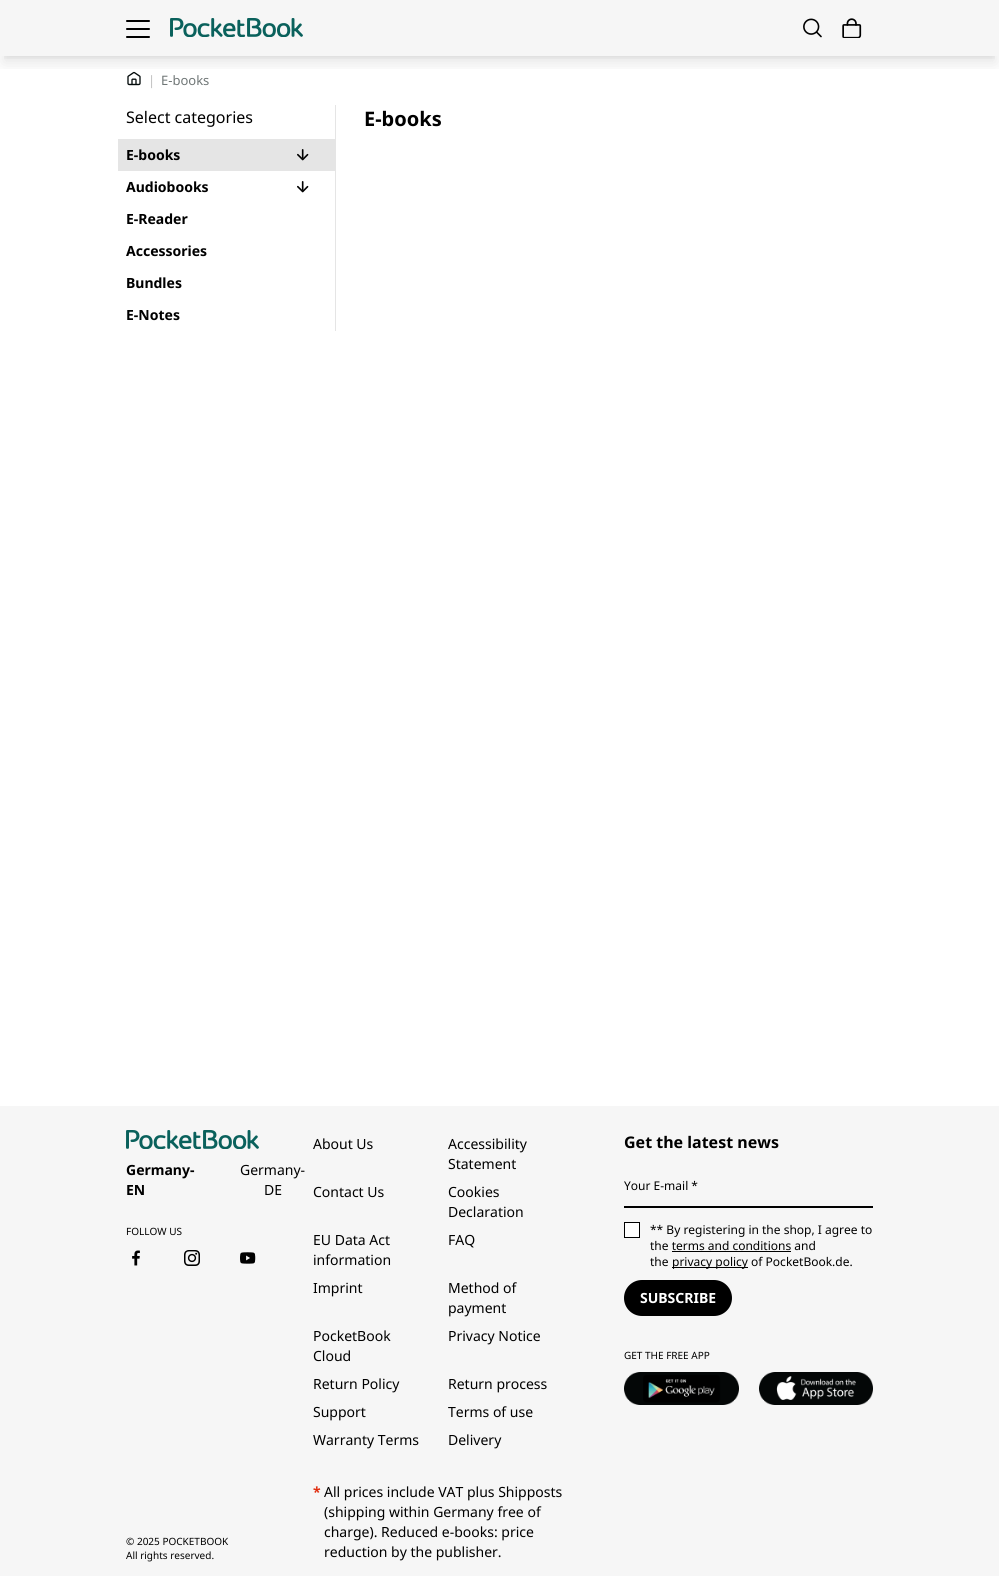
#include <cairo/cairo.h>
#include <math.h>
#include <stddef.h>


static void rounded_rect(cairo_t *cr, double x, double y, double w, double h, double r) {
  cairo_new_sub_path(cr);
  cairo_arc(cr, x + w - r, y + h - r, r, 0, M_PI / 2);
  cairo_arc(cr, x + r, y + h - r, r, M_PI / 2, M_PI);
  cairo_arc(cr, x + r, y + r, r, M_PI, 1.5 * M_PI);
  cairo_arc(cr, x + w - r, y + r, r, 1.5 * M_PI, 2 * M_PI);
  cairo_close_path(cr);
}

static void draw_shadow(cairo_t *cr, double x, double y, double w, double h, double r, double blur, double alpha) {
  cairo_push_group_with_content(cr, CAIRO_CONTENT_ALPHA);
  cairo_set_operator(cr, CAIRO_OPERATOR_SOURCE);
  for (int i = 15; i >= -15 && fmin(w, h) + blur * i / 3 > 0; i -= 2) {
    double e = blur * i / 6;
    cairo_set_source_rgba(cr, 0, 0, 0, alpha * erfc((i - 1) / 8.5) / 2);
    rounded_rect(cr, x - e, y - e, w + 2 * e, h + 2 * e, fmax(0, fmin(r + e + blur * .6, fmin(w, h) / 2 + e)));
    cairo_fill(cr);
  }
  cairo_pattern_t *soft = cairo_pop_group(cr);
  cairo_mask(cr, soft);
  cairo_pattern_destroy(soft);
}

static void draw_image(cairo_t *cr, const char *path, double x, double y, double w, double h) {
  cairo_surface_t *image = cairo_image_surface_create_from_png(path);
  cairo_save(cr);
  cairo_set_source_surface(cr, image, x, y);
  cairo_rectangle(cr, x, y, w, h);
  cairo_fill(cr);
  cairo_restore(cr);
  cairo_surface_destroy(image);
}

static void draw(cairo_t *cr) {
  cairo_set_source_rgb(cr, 1, 1, 1);
  cairo_paint(cr);
  cairo_set_source_rgb(cr, 246 / 255.0, 246 / 255.0, 246 / 255.0);
  cairo_rectangle(cr, 0, 0, 999, 56);
  cairo_fill(cr);
  cairo_set_source_rgb(cr, 0, 0, 0);
  rounded_rect(cr, 126, 20, 24, 2, 1);
  cairo_fill(cr);
  rounded_rect(cr, 126, 28, 24, 2, 1);
  cairo_fill(cr);
  rounded_rect(cr, 126, 36, 24, 2, 1);
  cairo_fill(cr);
  draw_image(cr, "images/1.png", 170, 18, 133, 19);
  draw_image(cr, "images/2.png", 803, 18, 19, 20);
  draw_image(cr, "images/3.png", 842, 18, 20, 20);
  cairo_save(cr);
  cairo_rectangle(cr, 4, 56, 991, 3);
  cairo_clip(cr);
  cairo_set_source_rgb(cr, 0, 0, 0);
  draw_shadow(cr, 4, 8, 991, 48, 0, 3, 0.1);
  cairo_restore(cr);
  draw_image(cr, "images/4.png", 127, 71, 14, 15);
  cairo_save(cr);
  cairo_rectangle(cr, 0, 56, 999, 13);
  cairo_clip(cr);
  cairo_set_source_rgb(cr, 0, 0, 0);
  draw_shadow(cr, 3, 13, 993, 50, 0, 7.5, 0.1);
  cairo_restore(cr);
  cairo_set_source_rgb(cr, 229 / 255.0, 229 / 255.0, 229 / 255.0);
  cairo_rectangle(cr, 335, 105, 1, 226);
  cairo_fill(cr);
  cairo_rectangle(cr, 118, 139, 217, 32);
  cairo_fill(cr);
  draw_image(cr, "images/5.png", 297, 149, 12, 12);
  draw_image(cr, "images/6.png", 297, 181, 12, 12);
  cairo_set_source_rgb(cr, 246 / 255.0, 246 / 255.0, 246 / 255.0);
  cairo_rectangle(cr, 0, 1106, 999, 470);
  cairo_fill(cr);
  draw_image(cr, "images/1.png", 126, 1130, 133, 19);
  draw_image(cr, "images/7.png", 132, 1250, 8, 16);
  draw_image(cr, "images/8.png", 184, 1250, 16, 16);
  draw_image(cr, "images/9.png", 240, 1252, 16, 12);
  cairo_set_source_rgb(cr, 0, 0, 0);
  cairo_rectangle(cr, 624, 1206, 249, 2);
  cairo_fill(cr);
  cairo_set_source_rgb(cr, 1, 1, 1);
  cairo_rectangle(cr, 624.5, 1222.5, 15, 15);
  cairo_fill_preserve(cr);
  cairo_set_source_rgb(cr, 0, 0, 0);
  cairo_set_line_width(cr, 1);
  cairo_stroke(cr);
  cairo_rectangle(cr, 672, 1251, 119, 1);
  cairo_fill(cr);
  cairo_rectangle(cr, 672, 1267, 76, 1);
  cairo_fill(cr);
  rounded_rect(cr, 624, 1280, 108, 36, 18);
  cairo_fill(cr);
  draw_image(cr, "images/10.png", 624, 1372, 115, 33);
  draw_image(cr, "images/11.png", 759, 1372, 114, 33);
  cairo_select_font_face(cr, "Noto Sans", CAIRO_FONT_SLANT_NORMAL, CAIRO_FONT_WEIGHT_NORMAL);
  cairo_set_font_size(cr, 13);
  cairo_set_source_rgb(cr, 191 / 255.0, 191 / 255.0, 191 / 255.0);
  cairo_move_to(cr, 148, 85);
  cairo_show_text(cr, "|");
  cairo_set_source_rgb(cr, 111 / 255.0, 118 / 255.0, 118 / 255.0);
  cairo_move_to(cr, 161, 85);
  cairo_show_text(cr, "E-books");
  cairo_set_font_size(cr, 16);
  cairo_set_source_rgb(cr, 0, 0, 0);
  cairo_move_to(cr, 126, 123);
  cairo_show_text(cr, "Select categories");
  cairo_select_font_face(cr, "Noto Sans", CAIRO_FONT_SLANT_NORMAL, CAIRO_FONT_WEIGHT_BOLD);
  cairo_set_font_size(cr, 14);
  cairo_move_to(cr, 126, 160);
  cairo_show_text(cr, "E-books");
  cairo_move_to(cr, 126, 192);
  cairo_show_text(cr, "Audiobooks");
  cairo_move_to(cr, 126, 224);
  cairo_show_text(cr, "E-Reader");
  cairo_move_to(cr, 126, 256);
  cairo_show_text(cr, "Accessories");
  cairo_move_to(cr, 126, 288);
  cairo_show_text(cr, "Bundles");
  cairo_move_to(cr, 126, 320);
  cairo_show_text(cr, "E-Notes");
  cairo_set_font_size(cr, 20);
  cairo_move_to(cr, 364, 126);
  cairo_show_text(cr, "E-books");
  cairo_set_font_size(cr, 14);
  cairo_move_to(cr, 126, 1175);
  cairo_show_text(cr, "Germany-");
  cairo_move_to(cr, 126, 1195);
  cairo_show_text(cr, "EN");
  cairo_select_font_face(cr, "Noto Sans", CAIRO_FONT_SLANT_NORMAL, CAIRO_FONT_WEIGHT_NORMAL);
  cairo_move_to(cr, 240, 1175);
  cairo_show_text(cr, "Germany-");
  cairo_move_to(cr, 264, 1195);
  cairo_show_text(cr, "DE");
  cairo_set_font_size(cr, 10);
  cairo_move_to(cr, 126, 1235);
  cairo_show_text(cr, "FOLLOW US");
  cairo_move_to(cr, 126, 1545);
  cairo_show_text(cr, "© 2025 POCKETBOOK");
  cairo_move_to(cr, 126, 1559);
  cairo_show_text(cr, "All rights reserved.");
  cairo_set_font_size(cr, 14);
  cairo_move_to(cr, 313, 1149);
  cairo_show_text(cr, "About Us");
  cairo_move_to(cr, 448, 1149);
  cairo_show_text(cr, "Accessibility");
  cairo_move_to(cr, 448, 1169);
  cairo_show_text(cr, "Statement");
  cairo_move_to(cr, 313, 1197);
  cairo_show_text(cr, "Contact Us");
  cairo_move_to(cr, 448, 1197);
  cairo_show_text(cr, "Cookies");
  cairo_move_to(cr, 448, 1217);
  cairo_show_text(cr, "Declaration");
  cairo_move_to(cr, 313, 1245);
  cairo_show_text(cr, "EU Data Act");
  cairo_move_to(cr, 313, 1265);
  cairo_show_text(cr, "information");
  cairo_move_to(cr, 448, 1245);
  cairo_show_text(cr, "FAQ");
  cairo_move_to(cr, 313, 1293);
  cairo_show_text(cr, "Imprint");
  cairo_move_to(cr, 448, 1293);
  cairo_show_text(cr, "Method of");
  cairo_move_to(cr, 448, 1313);
  cairo_show_text(cr, "payment");
  cairo_move_to(cr, 313, 1341);
  cairo_show_text(cr, "PocketBook");
  cairo_move_to(cr, 313, 1361);
  cairo_show_text(cr, "Cloud");
  cairo_move_to(cr, 448, 1341);
  cairo_show_text(cr, "Privacy Notice");
  cairo_move_to(cr, 313, 1389);
  cairo_show_text(cr, "Return Policy");
  cairo_move_to(cr, 448, 1389);
  cairo_show_text(cr, "Return process");
  cairo_move_to(cr, 313, 1417);
  cairo_show_text(cr, "Support");
  cairo_move_to(cr, 448, 1417);
  cairo_show_text(cr, "Terms of use");
  cairo_move_to(cr, 313, 1445);
  cairo_show_text(cr, "Warranty Terms");
  cairo_move_to(cr, 448, 1445);
  cairo_show_text(cr, "Delivery");
  cairo_select_font_face(cr, "Noto Sans", CAIRO_FONT_SLANT_NORMAL, CAIRO_FONT_WEIGHT_BOLD);
  cairo_set_source_rgb(cr, 225 / 255.0, 45 / 255.0, 15 / 255.0);
  cairo_move_to(cr, 313, 1497);
  cairo_show_text(cr, "*");
  cairo_select_font_face(cr, "Noto Sans", CAIRO_FONT_SLANT_NORMAL, CAIRO_FONT_WEIGHT_NORMAL);
  cairo_set_source_rgb(cr, 0, 0, 0);
  cairo_move_to(cr, 324, 1497);
  cairo_show_text(cr, "All prices include VAT plus Shipposts");
  cairo_move_to(cr, 324, 1517);
  cairo_show_text(cr, "(shipping within Germany free of");
  cairo_move_to(cr, 324, 1537);
  cairo_show_text(cr, "charge). Reduced e-books: price");
  cairo_move_to(cr, 324, 1557);
  cairo_show_text(cr, "reduction by the publisher.");
  cairo_select_font_face(cr, "Noto Sans", CAIRO_FONT_SLANT_NORMAL, CAIRO_FONT_WEIGHT_BOLD);
  cairo_set_font_size(cr, 16);
  cairo_move_to(cr, 624, 1148);
  cairo_show_text(cr, "Get the latest news");
  cairo_select_font_face(cr, "Noto Sans", CAIRO_FONT_SLANT_NORMAL, CAIRO_FONT_WEIGHT_NORMAL);
  cairo_set_font_size(cr, 12);
  cairo_move_to(cr, 624, 1190);
  cairo_show_text(cr, "Your E-mail *");
  cairo_move_to(cr, 650, 1234);
  cairo_show_text(cr, "** By registering in the shop, I agree to");
  cairo_move_to(cr, 650, 1250);
  cairo_show_text(cr, "the terms and conditions and");
  cairo_move_to(cr, 650, 1266);
  cairo_show_text(cr, "the");
  cairo_move_to(cr, 672, 1266);
  cairo_show_text(cr, "privacy policy of PocketBook.de.");
  cairo_select_font_face(cr, "Noto Sans", CAIRO_FONT_SLANT_NORMAL, CAIRO_FONT_WEIGHT_BOLD);
  cairo_set_font_size(cr, 14);
  cairo_set_source_rgb(cr, 1, 1, 1);
  cairo_move_to(cr, 640, 1303);
  cairo_show_text(cr, "SUBSCRIBE");
  cairo_select_font_face(cr, "Noto Sans", CAIRO_FONT_SLANT_NORMAL, CAIRO_FONT_WEIGHT_NORMAL);
  cairo_set_font_size(cr, 10);
  cairo_set_source_rgb(cr, 0, 0, 0);
  cairo_move_to(cr, 624, 1359);
  cairo_show_text(cr, "GET THE FREE APP");
}

int main(void) {
  cairo_surface_t *surface = cairo_image_surface_create(CAIRO_FORMAT_RGB24, 999, 1576);
  cairo_t *cr = cairo_create(surface);
  cairo_font_options_t *options = cairo_font_options_create();
  cairo_font_options_set_hint_metrics(options, CAIRO_HINT_METRICS_OFF);
  cairo_font_options_set_hint_style(options, CAIRO_HINT_STYLE_NONE);
  cairo_set_font_options(cr, options);
  cairo_set_miter_limit(cr, 4);
  draw(cr);
  cairo_surface_write_to_png(surface, "out.png");
  cairo_font_options_destroy(options);
  cairo_destroy(cr);
  cairo_surface_destroy(surface);
  return 0;
}
